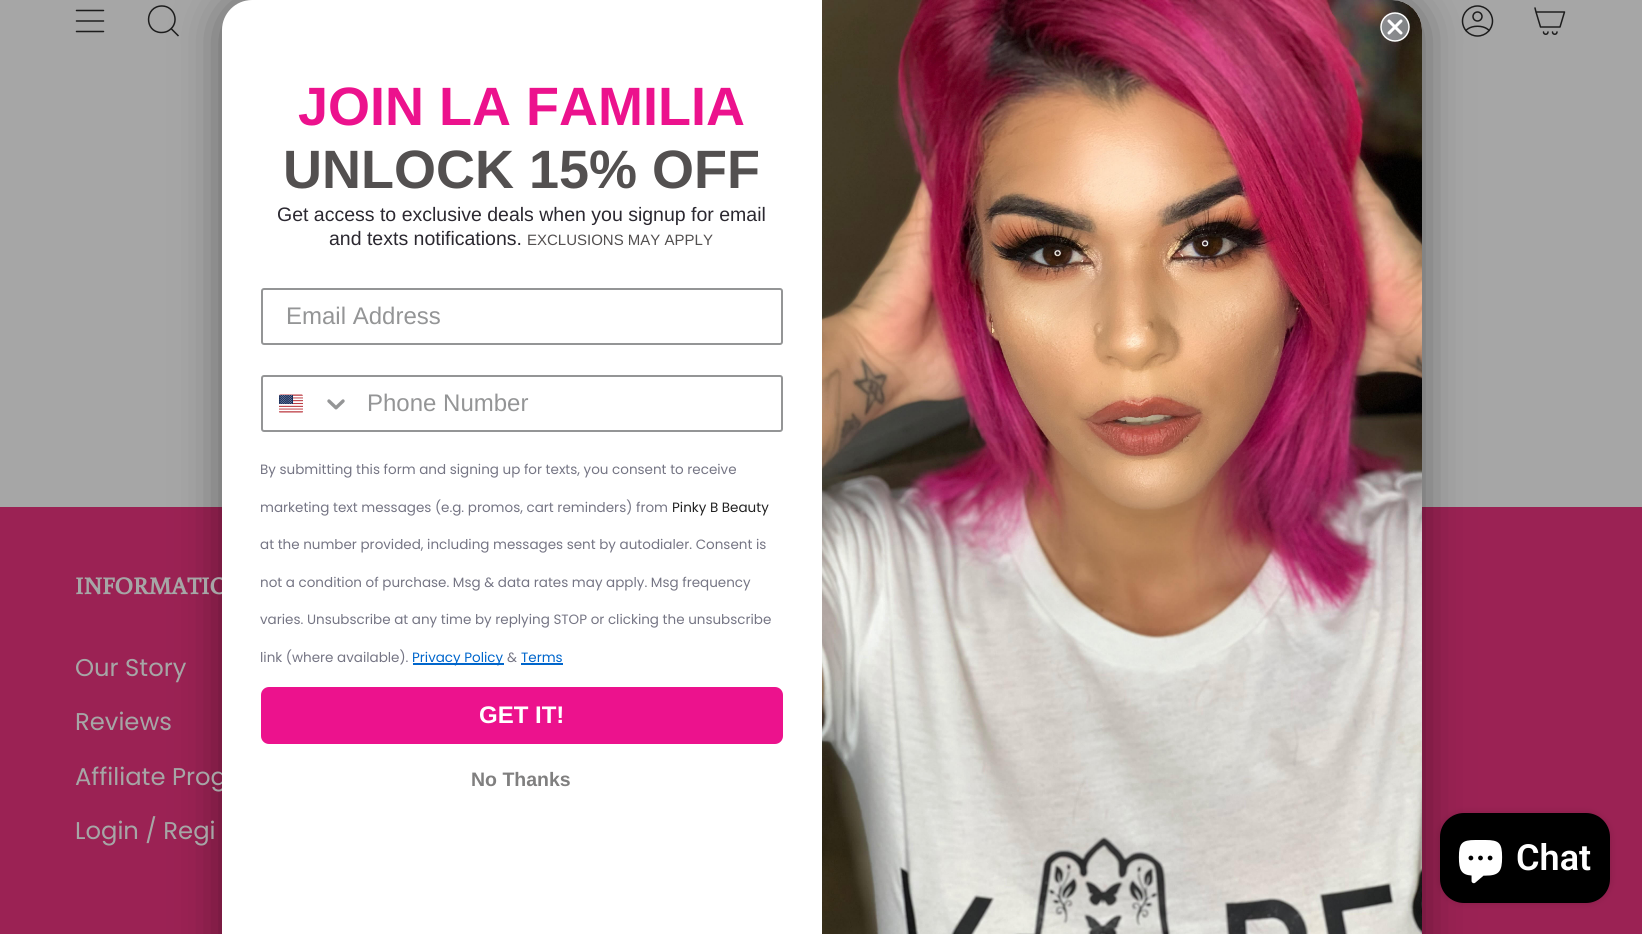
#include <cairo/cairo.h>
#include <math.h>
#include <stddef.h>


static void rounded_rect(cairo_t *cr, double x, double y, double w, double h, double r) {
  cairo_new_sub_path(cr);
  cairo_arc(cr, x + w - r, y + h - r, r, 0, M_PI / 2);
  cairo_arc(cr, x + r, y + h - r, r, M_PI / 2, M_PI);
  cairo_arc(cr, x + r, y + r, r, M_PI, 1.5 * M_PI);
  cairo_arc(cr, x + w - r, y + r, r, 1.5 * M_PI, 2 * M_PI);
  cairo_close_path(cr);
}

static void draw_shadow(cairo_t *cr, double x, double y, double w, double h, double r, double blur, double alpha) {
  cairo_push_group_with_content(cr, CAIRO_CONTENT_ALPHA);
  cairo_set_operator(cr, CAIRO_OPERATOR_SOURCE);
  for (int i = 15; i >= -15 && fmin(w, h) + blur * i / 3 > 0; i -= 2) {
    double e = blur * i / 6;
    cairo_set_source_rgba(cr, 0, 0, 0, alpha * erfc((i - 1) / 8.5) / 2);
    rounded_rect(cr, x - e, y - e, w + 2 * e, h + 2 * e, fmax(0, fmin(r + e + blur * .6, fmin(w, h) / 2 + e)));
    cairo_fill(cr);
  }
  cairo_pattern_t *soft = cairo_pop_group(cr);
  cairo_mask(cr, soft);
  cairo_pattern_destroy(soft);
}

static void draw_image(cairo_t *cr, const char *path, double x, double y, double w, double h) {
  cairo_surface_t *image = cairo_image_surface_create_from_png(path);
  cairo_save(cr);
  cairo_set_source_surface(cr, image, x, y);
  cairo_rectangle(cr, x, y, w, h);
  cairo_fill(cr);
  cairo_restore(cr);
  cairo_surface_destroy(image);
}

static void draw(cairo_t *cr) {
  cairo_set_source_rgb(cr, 166 / 255.0, 166 / 255.0, 166 / 255.0);
  cairo_paint(cr);
  cairo_new_path(cr);
  cairo_move_to(cr, 76.5, 10.5);
  cairo_line_to(cr, 103.5, 10.5);
  cairo_move_to(cr, 76.5, 21);
  cairo_line_to(cr, 103.5, 21);
  cairo_move_to(cr, 76.5, 31.5);
  cairo_line_to(cr, 103.5, 31.5);
  cairo_set_source_rgb(cr, 28 / 255.0, 28 / 255.0, 28 / 255.0);
  cairo_set_line_width(cr, 1.5);
  cairo_set_line_cap(cr, CAIRO_LINE_CAP_ROUND);
  cairo_set_line_join(cr, CAIRO_LINE_JOIN_ROUND);
  cairo_stroke(cr);
  cairo_new_path(cr);
  cairo_move_to(cr, 162, 6);
  cairo_curve_to(cr, 174.5, 6, 180, 22.5, 169.5, 30);
  cairo_curve_to(cr, 167, 32, 164, 32.5, 161, 32.5);
  cairo_curve_to(cr, 144, 32, 144.5, 6, 162, 6);
  cairo_close_path(cr);
  cairo_move_to(cr, 171, 28.5);
  cairo_line_to(cr, 178.5, 36);
  cairo_set_line_cap(cr, CAIRO_LINE_CAP_BUTT);
  cairo_set_line_join(cr, CAIRO_LINE_JOIN_MITER);
  cairo_stroke(cr);
  draw_image(cr, "images/1.png", 1461, 5, 33, 32);
  cairo_new_path(cr);
  cairo_move_to(cr, 1536, 12);
  cairo_line_to(cr, 1564.5, 12);
  cairo_line_to(cr, 1560, 27);
  cairo_line_to(cr, 1540.5, 27);
  cairo_close_path(cr);
  cairo_move_to(cr, 1536, 12);
  cairo_line_to(cr, 1535, 8);
  cairo_move_to(cr, 1548, 32);
  cairo_curve_to(cr, 1548, 35, 1543.5, 35, 1543.5, 32);
  cairo_move_to(cr, 1557, 32);
  cairo_curve_to(cr, 1557, 35, 1552.5, 35, 1552.5, 32);
  cairo_set_line_cap(cr, CAIRO_LINE_CAP_ROUND);
  cairo_set_line_join(cr, CAIRO_LINE_JOIN_ROUND);
  cairo_stroke(cr);
  cairo_set_source_rgb(cr, 155 / 255.0, 34 / 255.0, 84 / 255.0);
  cairo_rectangle(cr, 0, 507, 1642, 427);
  cairo_fill(cr);
  cairo_set_source_rgb(cr, 0, 0, 0);
  draw_shadow(cr, 222, 0, 1200, 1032, 30, 22.5, 0.41);
  draw_shadow(cr, 1440, 813, 170, 90, 24, 4, 0.15);
  cairo_set_source_rgb(cr, 0, 0, 0);
  rounded_rect(cr, 1440, 813, 170, 90, 24);
  cairo_fill(cr);
  draw_image(cr, "images/5.png", 1458, 840, 45, 44);
  cairo_select_font_face(cr, "Buenard", CAIRO_FONT_SLANT_NORMAL, CAIRO_FONT_WEIGHT_BOLD);
  cairo_set_font_size(cr, 24.25);
  cairo_set_source_rgb(cr, 166 / 255.0, 166 / 255.0, 166 / 255.0);
  cairo_move_to(cr, 75, 594);
  cairo_show_text(cr, "INFORMATIO");
  cairo_select_font_face(cr, "Poppins", CAIRO_FONT_SLANT_NORMAL, CAIRO_FONT_WEIGHT_NORMAL);
  cairo_move_to(cr, 75, 676);
  cairo_show_text(cr, "Our Story");
  cairo_move_to(cr, 75, 730);
  cairo_show_text(cr, "Reviews");
  cairo_move_to(cr, 75, 785);
  cairo_show_text(cr, "Affiliate Prog");
  cairo_move_to(cr, 75, 839);
  cairo_show_text(cr, "Login / Regi");
  cairo_set_source_rgb(cr, 1, 1, 1);
  cairo_new_path(cr);
  cairo_move_to(cr, 252, 0);
  cairo_line_to(cr, 1392, 0);
  cairo_curve_to(cr, 1408.5, 0, 1422, 13.5, 1422, 30);
  cairo_line_to(cr, 1422, 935);
  cairo_line_to(cr, 222, 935);
  cairo_line_to(cr, 222, 30);
  cairo_curve_to(cr, 222, 13.5, 235.5, 0, 252, 0);
  cairo_close_path(cr);
  cairo_fill(cr);
  cairo_select_font_face(cr, "Liberation Sans", CAIRO_FONT_SLANT_NORMAL, CAIRO_FONT_WEIGHT_BOLD);
  cairo_set_font_size(cr, 54);
  cairo_set_source_rgb(cr, 236 / 255.0, 18 / 255.0, 141 / 255.0);
  cairo_move_to(cr, 298, 125);
  cairo_show_text(cr, "JOIN LA FAMILIA");
  cairo_set_source_rgb(cr, 83 / 255.0, 80 / 255.0, 80 / 255.0);
  cairo_move_to(cr, 283, 188);
  cairo_show_text(cr, "UNLOCK 15% OFF");
  cairo_select_font_face(cr, "Liberation Sans", CAIRO_FONT_SLANT_NORMAL, CAIRO_FONT_WEIGHT_NORMAL);
  cairo_set_font_size(cr, 19.5);
  cairo_set_source_rgb(cr, 43 / 255.0, 40 / 255.0, 48 / 255.0);
  cairo_move_to(cr, 277, 221);
  cairo_show_text(cr, "Get access to exclusive deals when you signup for email");
  cairo_move_to(cr, 329, 245);
  cairo_show_text(cr, "and texts notifications.");
  cairo_set_font_size(cr, 15);
  cairo_set_source_rgb(cr, 83 / 255.0, 80 / 255.0, 80 / 255.0);
  cairo_move_to(cr, 527, 245);
  cairo_show_text(cr, "EXCLUSIONS MAY APPLY");
  rounded_rect(cr, 262, 289, 520, 55, 2);
  cairo_set_source_rgb(cr, 148 / 255.0, 149 / 255.0, 150 / 255.0);
  cairo_set_line_width(cr, 2);
  cairo_set_line_cap(cr, CAIRO_LINE_CAP_BUTT);
  cairo_set_line_join(cr, CAIRO_LINE_JOIN_MITER);
  cairo_stroke(cr);
  cairo_set_font_size(cr, 24);
  cairo_move_to(cr, 286, 324);
  cairo_show_text(cr, "Email Address");
  rounded_rect(cr, 262, 376, 520, 55, 2);
  cairo_stroke(cr);
  draw_image(cr, "images/2.png", 279, 394, 24, 19);
  draw_image(cr, "images/3.png", 327, 399, 18, 11);
  cairo_move_to(cr, 367, 411);
  cairo_show_text(cr, "Phone Number");
  cairo_select_font_face(cr, "Poppins", CAIRO_FONT_SLANT_NORMAL, CAIRO_FONT_WEIGHT_NORMAL);
  cairo_set_font_size(cr, 13.5);
  cairo_set_source_rgb(cr, 117 / 255.0, 117 / 255.0, 132 / 255.0);
  cairo_move_to(cr, 260, 474);
  cairo_show_text(cr, "By submitting this form and signing up for texts, you consent to receive");
  cairo_move_to(cr, 260, 512);
  cairo_show_text(cr, "marketing text messages (e.g. promos, cart reminders) from");
  cairo_set_source_rgb(cr, 34 / 255.0, 34 / 255.0, 34 / 255.0);
  cairo_move_to(cr, 672, 512);
  cairo_show_text(cr, "Pinky B Beauty");
  cairo_set_source_rgb(cr, 117 / 255.0, 117 / 255.0, 132 / 255.0);
  cairo_move_to(cr, 260, 549);
  cairo_show_text(cr, "at the number provided, including messages sent by autodialer. Consent is");
  cairo_move_to(cr, 260, 587);
  cairo_show_text(cr, "not a condition of purchase. Msg & data rates may apply. Msg frequency");
  cairo_move_to(cr, 260, 624);
  cairo_show_text(cr, "varies. Unsubscribe at any time by replying STOP or clicking the unsubscribe");
  cairo_move_to(cr, 260, 662);
  cairo_show_text(cr, "link (where available).");
  cairo_set_source_rgb(cr, 0, 102 / 255.0, 204 / 255.0);
  cairo_rectangle(cr, 413, 663, 91, 2);
  cairo_fill(cr);
  cairo_move_to(cr, 412, 662);
  cairo_show_text(cr, "Privacy Policy");
  cairo_set_source_rgb(cr, 117 / 255.0, 117 / 255.0, 132 / 255.0);
  cairo_move_to(cr, 507, 662);
  cairo_show_text(cr, "&");
  cairo_set_source_rgb(cr, 0, 102 / 255.0, 204 / 255.0);
  cairo_move_to(cr, 521, 662);
  cairo_show_text(cr, "Terms");
  cairo_rectangle(cr, 521, 663, 42, 2);
  cairo_fill(cr);
  cairo_set_source_rgb(cr, 236 / 255.0, 18 / 255.0, 141 / 255.0);
  rounded_rect(cr, 261, 687, 522, 57, 8);
  cairo_fill(cr);
  cairo_select_font_face(cr, "Liberation Sans", CAIRO_FONT_SLANT_NORMAL, CAIRO_FONT_WEIGHT_BOLD);
  cairo_set_font_size(cr, 24);
  cairo_set_source_rgb(cr, 1, 1, 1);
  cairo_move_to(cr, 479, 723);
  cairo_show_text(cr, "GET IT!");
  cairo_set_font_size(cr, 19.5);
  cairo_set_source_rgb(cr, 128 / 255.0, 127 / 255.0, 127 / 255.0);
  cairo_move_to(cr, 471, 786);
  cairo_show_text(cr, "No Thanks");
  draw_image(cr, "images/4.png", 822, 0, 600, 934);
  cairo_set_source_rgba(cr, 180 / 255.0, 187 / 255.0, 195 / 255.0, 0.65);
  cairo_arc(cr, 1395, 27, 14, 0, 2 * M_PI);
  cairo_fill_preserve(cr);
  cairo_set_source_rgb(cr, 1, 1, 1);
  cairo_set_line_width(cr, 1.5);
  cairo_stroke(cr);
  cairo_new_path(cr);
  cairo_move_to(cr, 1389, 21);
  cairo_line_to(cr, 1401, 33);
  cairo_move_to(cr, 1389, 33);
  cairo_line_to(cr, 1401, 21);
  cairo_close_path(cr);
  cairo_set_line_width(cr, 3);
  cairo_set_line_cap(cr, CAIRO_LINE_CAP_ROUND);
  cairo_set_line_join(cr, CAIRO_LINE_JOIN_ROUND);
  cairo_stroke(cr);
  cairo_select_font_face(cr, "Roboto SemiBold", CAIRO_FONT_SLANT_NORMAL, CAIRO_FONT_WEIGHT_NORMAL);
  cairo_set_font_size(cr, 36);
  cairo_move_to(cr, 1516, 870);
  cairo_show_text(cr, "Chat");
}

int main(void) {
  cairo_surface_t *surface = cairo_image_surface_create(CAIRO_FORMAT_RGB24, 1642, 934);
  cairo_t *cr = cairo_create(surface);
  cairo_font_options_t *options = cairo_font_options_create();
  cairo_font_options_set_hint_metrics(options, CAIRO_HINT_METRICS_OFF);
  cairo_font_options_set_hint_style(options, CAIRO_HINT_STYLE_NONE);
  cairo_set_font_options(cr, options);
  cairo_set_miter_limit(cr, 4);
  draw(cr);
  cairo_surface_write_to_png(surface, "out.png");
  cairo_font_options_destroy(options);
  cairo_destroy(cr);
  cairo_surface_destroy(surface);
  return 0;
}
